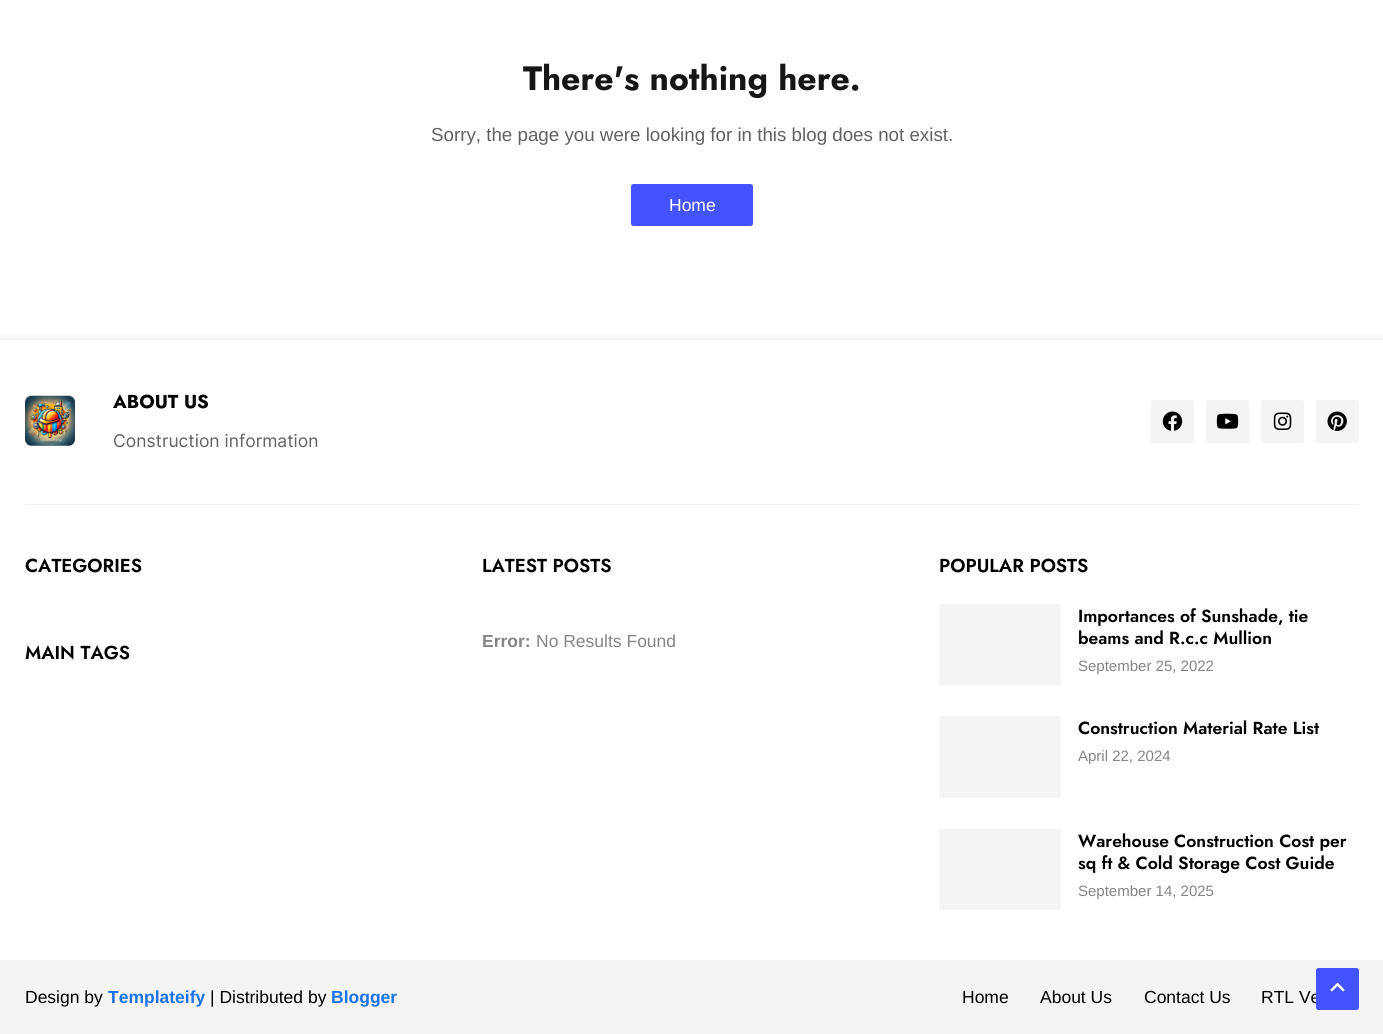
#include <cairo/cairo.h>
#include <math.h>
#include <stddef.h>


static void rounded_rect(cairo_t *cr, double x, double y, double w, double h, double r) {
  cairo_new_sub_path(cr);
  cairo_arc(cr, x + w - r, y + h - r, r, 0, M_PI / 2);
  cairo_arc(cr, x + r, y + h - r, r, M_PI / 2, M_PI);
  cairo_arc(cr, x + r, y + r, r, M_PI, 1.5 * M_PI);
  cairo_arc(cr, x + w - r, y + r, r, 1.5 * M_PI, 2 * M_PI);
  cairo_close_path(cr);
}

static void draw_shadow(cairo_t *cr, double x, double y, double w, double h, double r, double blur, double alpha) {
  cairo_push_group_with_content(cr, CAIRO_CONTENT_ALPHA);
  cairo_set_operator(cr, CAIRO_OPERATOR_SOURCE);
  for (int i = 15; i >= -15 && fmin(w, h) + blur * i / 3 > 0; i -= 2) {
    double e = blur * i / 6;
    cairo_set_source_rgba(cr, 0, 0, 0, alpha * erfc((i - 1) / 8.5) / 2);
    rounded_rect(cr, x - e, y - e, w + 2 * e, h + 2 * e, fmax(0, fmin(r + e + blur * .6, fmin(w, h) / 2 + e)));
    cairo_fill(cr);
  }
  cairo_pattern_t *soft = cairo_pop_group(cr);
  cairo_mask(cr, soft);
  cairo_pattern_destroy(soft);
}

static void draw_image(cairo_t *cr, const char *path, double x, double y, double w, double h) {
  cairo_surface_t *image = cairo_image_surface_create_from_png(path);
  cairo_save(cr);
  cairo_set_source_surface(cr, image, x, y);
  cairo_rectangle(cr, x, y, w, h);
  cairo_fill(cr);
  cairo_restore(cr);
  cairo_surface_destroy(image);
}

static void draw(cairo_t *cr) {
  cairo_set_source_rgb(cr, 1, 1, 1);
  cairo_paint(cr);
  cairo_set_source_rgb(cr, 67 / 255.0, 83 / 255.0, 1);
  rounded_rect(cr, 631, 184, 122, 42, 2.5);
  cairo_fill(cr);
  cairo_save(cr);
  cairo_rectangle(cr, 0, 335, 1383, 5);
  cairo_clip(cr);
  cairo_set_source_rgb(cr, 0, 0, 0);
  draw_shadow(cr, 0, 340, 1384, 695, 0, 6, 0.1);
  cairo_restore(cr);
  draw_image(cr, "images/1.png", 25, 395, 50, 51);
  cairo_set_source_rgb(cr, 243 / 255.0, 245 / 255.0, 245 / 255.0);
  rounded_rect(cr, 1151, 400, 43, 43, 2.5);
  cairo_fill(cr);
  draw_image(cr, "images/2.png", 1162, 411, 21, 20);
  rounded_rect(cr, 1206, 400, 43, 43, 2.5);
  cairo_fill(cr);
  draw_image(cr, "images/3.png", 1216, 413, 23, 16);
  rounded_rect(cr, 1261, 400, 43, 43, 2.5);
  cairo_fill(cr);
  draw_image(cr, "images/4.png", 1273, 412, 19, 18);
  rounded_rect(cr, 1316, 400, 43, 43, 2.5);
  cairo_fill(cr);
  draw_image(cr, "images/5.png", 1327, 411, 20, 20);
  cairo_set_source_rgb(cr, 240 / 255.0, 240 / 255.0, 240 / 255.0);
  cairo_rectangle(cr, 25, 504, 1334, 1);
  cairo_fill(cr);
  cairo_set_source_rgb(cr, 243 / 255.0, 245 / 255.0, 245 / 255.0);
  cairo_rectangle(cr, 939, 604, 122, 81);
  cairo_fill(cr);
  cairo_rectangle(cr, 939, 716, 122, 82);
  cairo_fill(cr);
  cairo_rectangle(cr, 939, 829, 122, 81);
  cairo_fill(cr);
  cairo_set_source_rgb(cr, 244 / 255.0, 244 / 255.0, 244 / 255.0);
  cairo_rectangle(cr, 0, 960, 1383, 74);
  cairo_fill(cr);
  cairo_select_font_face(cr, "Jost", CAIRO_FONT_SLANT_NORMAL, CAIRO_FONT_WEIGHT_BOLD);
  cairo_set_font_size(cr, 33.75);
  cairo_set_source_rgb(cr, 22 / 255.0, 22 / 255.0, 24 / 255.0);
  cairo_move_to(cr, 523, 90);
  cairo_show_text(cr, "There's nothing here.");
  cairo_select_font_face(cr, "Liberation Sans", CAIRO_FONT_SLANT_NORMAL, CAIRO_FONT_WEIGHT_NORMAL);
  cairo_set_font_size(cr, 18.75);
  cairo_set_source_rgb(cr, 98 / 255.0, 98 / 255.0, 98 / 255.0);
  cairo_move_to(cr, 431, 141);
  cairo_show_text(cr, "Sorry, the page you were looking for in this blog does not exist.");
  cairo_set_font_size(cr, 17.5);
  cairo_set_source_rgb(cr, 1, 1, 1);
  cairo_move_to(cr, 669, 211);
  cairo_show_text(cr, "Home");
  cairo_select_font_face(cr, "Jost", CAIRO_FONT_SLANT_NORMAL, CAIRO_FONT_WEIGHT_BOLD);
  cairo_set_font_size(cr, 18.75);
  cairo_set_source_rgb(cr, 0, 0, 0);
  cairo_move_to(cr, 113, 408);
  cairo_show_text(cr, "ABOUT US");
  cairo_select_font_face(cr, "Inter", CAIRO_FONT_SLANT_NORMAL, CAIRO_FONT_WEIGHT_NORMAL);
  cairo_set_font_size(cr, 17.5);
  cairo_set_source_rgb(cr, 98 / 255.0, 98 / 255.0, 98 / 255.0);
  cairo_move_to(cr, 113, 447);
  cairo_show_text(cr, "Construction information");
  cairo_select_font_face(cr, "Jost SemiBold", CAIRO_FONT_SLANT_NORMAL, CAIRO_FONT_WEIGHT_NORMAL);
  cairo_set_font_size(cr, 18.75);
  cairo_set_source_rgb(cr, 0, 0, 0);
  cairo_move_to(cr, 25, 572);
  cairo_show_text(cr, "CATEGORIES");
  cairo_move_to(cr, 25, 659);
  cairo_show_text(cr, "MAIN TAGS");
  cairo_move_to(cr, 482, 572);
  cairo_show_text(cr, "LATEST POSTS");
  cairo_select_font_face(cr, "Liberation Sans", CAIRO_FONT_SLANT_NORMAL, CAIRO_FONT_WEIGHT_BOLD);
  cairo_set_font_size(cr, 17.5);
  cairo_set_source_rgb(cr, 133 / 255.0, 133 / 255.0, 133 / 255.0);
  cairo_move_to(cr, 482, 647);
  cairo_show_text(cr, "Error:");
  cairo_select_font_face(cr, "Liberation Sans", CAIRO_FONT_SLANT_NORMAL, CAIRO_FONT_WEIGHT_NORMAL);
  cairo_move_to(cr, 536, 647);
  cairo_show_text(cr, "No Results Found");
  cairo_select_font_face(cr, "Jost SemiBold", CAIRO_FONT_SLANT_NORMAL, CAIRO_FONT_WEIGHT_NORMAL);
  cairo_set_font_size(cr, 18.75);
  cairo_set_source_rgb(cr, 0, 0, 0);
  cairo_move_to(cr, 939, 572);
  cairo_show_text(cr, "POPULAR POSTS");
  cairo_set_font_size(cr, 17.5);
  cairo_move_to(cr, 1078, 622);
  cairo_show_text(cr, "Importances of Sunshade, tie");
  cairo_move_to(cr, 1078, 644);
  cairo_show_text(cr, "beams and R.c.c Mullion");
  cairo_select_font_face(cr, "Liberation Sans", CAIRO_FONT_SLANT_NORMAL, CAIRO_FONT_WEIGHT_NORMAL);
  cairo_set_font_size(cr, 15);
  cairo_set_source_rgb(cr, 133 / 255.0, 133 / 255.0, 133 / 255.0);
  cairo_move_to(cr, 1078, 671);
  cairo_show_text(cr, "September 25, 2022");
  cairo_select_font_face(cr, "Jost SemiBold", CAIRO_FONT_SLANT_NORMAL, CAIRO_FONT_WEIGHT_NORMAL);
  cairo_set_font_size(cr, 17.5);
  cairo_set_source_rgb(cr, 0, 0, 0);
  cairo_move_to(cr, 1078, 734);
  cairo_show_text(cr, "Construction Material Rate List");
  cairo_select_font_face(cr, "Liberation Sans", CAIRO_FONT_SLANT_NORMAL, CAIRO_FONT_WEIGHT_NORMAL);
  cairo_set_font_size(cr, 15);
  cairo_set_source_rgb(cr, 133 / 255.0, 133 / 255.0, 133 / 255.0);
  cairo_move_to(cr, 1078, 761);
  cairo_show_text(cr, "April 22, 2024");
  cairo_select_font_face(cr, "Jost SemiBold", CAIRO_FONT_SLANT_NORMAL, CAIRO_FONT_WEIGHT_NORMAL);
  cairo_set_font_size(cr, 17.5);
  cairo_set_source_rgb(cr, 0, 0, 0);
  cairo_move_to(cr, 1078, 847);
  cairo_show_text(cr, "Warehouse Construction Cost per");
  cairo_move_to(cr, 1078, 869);
  cairo_show_text(cr, "sq ft & Cold Storage Cost Guide");
  cairo_select_font_face(cr, "Liberation Sans", CAIRO_FONT_SLANT_NORMAL, CAIRO_FONT_WEIGHT_NORMAL);
  cairo_set_font_size(cr, 15);
  cairo_set_source_rgb(cr, 133 / 255.0, 133 / 255.0, 133 / 255.0);
  cairo_move_to(cr, 1078, 896);
  cairo_show_text(cr, "September 14, 2025");
  cairo_set_font_size(cr, 17.5);
  cairo_set_source_rgb(cr, 0, 0, 0);
  cairo_move_to(cr, 25, 1003);
  cairo_show_text(cr, "Design by");
  cairo_select_font_face(cr, "Liberation Sans", CAIRO_FONT_SLANT_NORMAL, CAIRO_FONT_WEIGHT_BOLD);
  cairo_set_source_rgb(cr, 26 / 255.0, 115 / 255.0, 232 / 255.0);
  cairo_move_to(cr, 108, 1003);
  cairo_show_text(cr, "Templateify");
  cairo_select_font_face(cr, "Liberation Sans", CAIRO_FONT_SLANT_NORMAL, CAIRO_FONT_WEIGHT_NORMAL);
  cairo_set_source_rgb(cr, 0, 0, 0);
  cairo_move_to(cr, 210, 1003);
  cairo_show_text(cr, "| Distributed by");
  cairo_select_font_face(cr, "Liberation Sans", CAIRO_FONT_SLANT_NORMAL, CAIRO_FONT_WEIGHT_BOLD);
  cairo_set_source_rgb(cr, 26 / 255.0, 115 / 255.0, 232 / 255.0);
  cairo_move_to(cr, 331, 1003);
  cairo_show_text(cr, "Blogger");
  cairo_select_font_face(cr, "Liberation Sans", CAIRO_FONT_SLANT_NORMAL, CAIRO_FONT_WEIGHT_NORMAL);
  cairo_set_source_rgb(cr, 0, 0, 0);
  cairo_move_to(cr, 962, 1003);
  cairo_show_text(cr, "Home");
  cairo_move_to(cr, 1040, 1003);
  cairo_show_text(cr, "About Us");
  cairo_move_to(cr, 1144, 1003);
  cairo_show_text(cr, "Contact Us");
  cairo_move_to(cr, 1261, 1003);
  cairo_show_text(cr, "RTL Ve");
  cairo_set_source_rgb(cr, 67 / 255.0, 83 / 255.0, 1);
  rounded_rect(cr, 1316, 968, 43, 42, 2.5);
  cairo_fill(cr);
  draw_image(cr, "images/6.png", 1330, 983, 15, 9);
}

int main(void) {
  cairo_surface_t *surface = cairo_image_surface_create(CAIRO_FORMAT_RGB24, 1383, 1034);
  cairo_t *cr = cairo_create(surface);
  cairo_font_options_t *options = cairo_font_options_create();
  cairo_font_options_set_hint_metrics(options, CAIRO_HINT_METRICS_OFF);
  cairo_font_options_set_hint_style(options, CAIRO_HINT_STYLE_NONE);
  cairo_set_font_options(cr, options);
  cairo_set_miter_limit(cr, 4);
  draw(cr);
  cairo_surface_write_to_png(surface, "out.png");
  cairo_font_options_destroy(options);
  cairo_destroy(cr);
  cairo_surface_destroy(surface);
  return 0;
}
